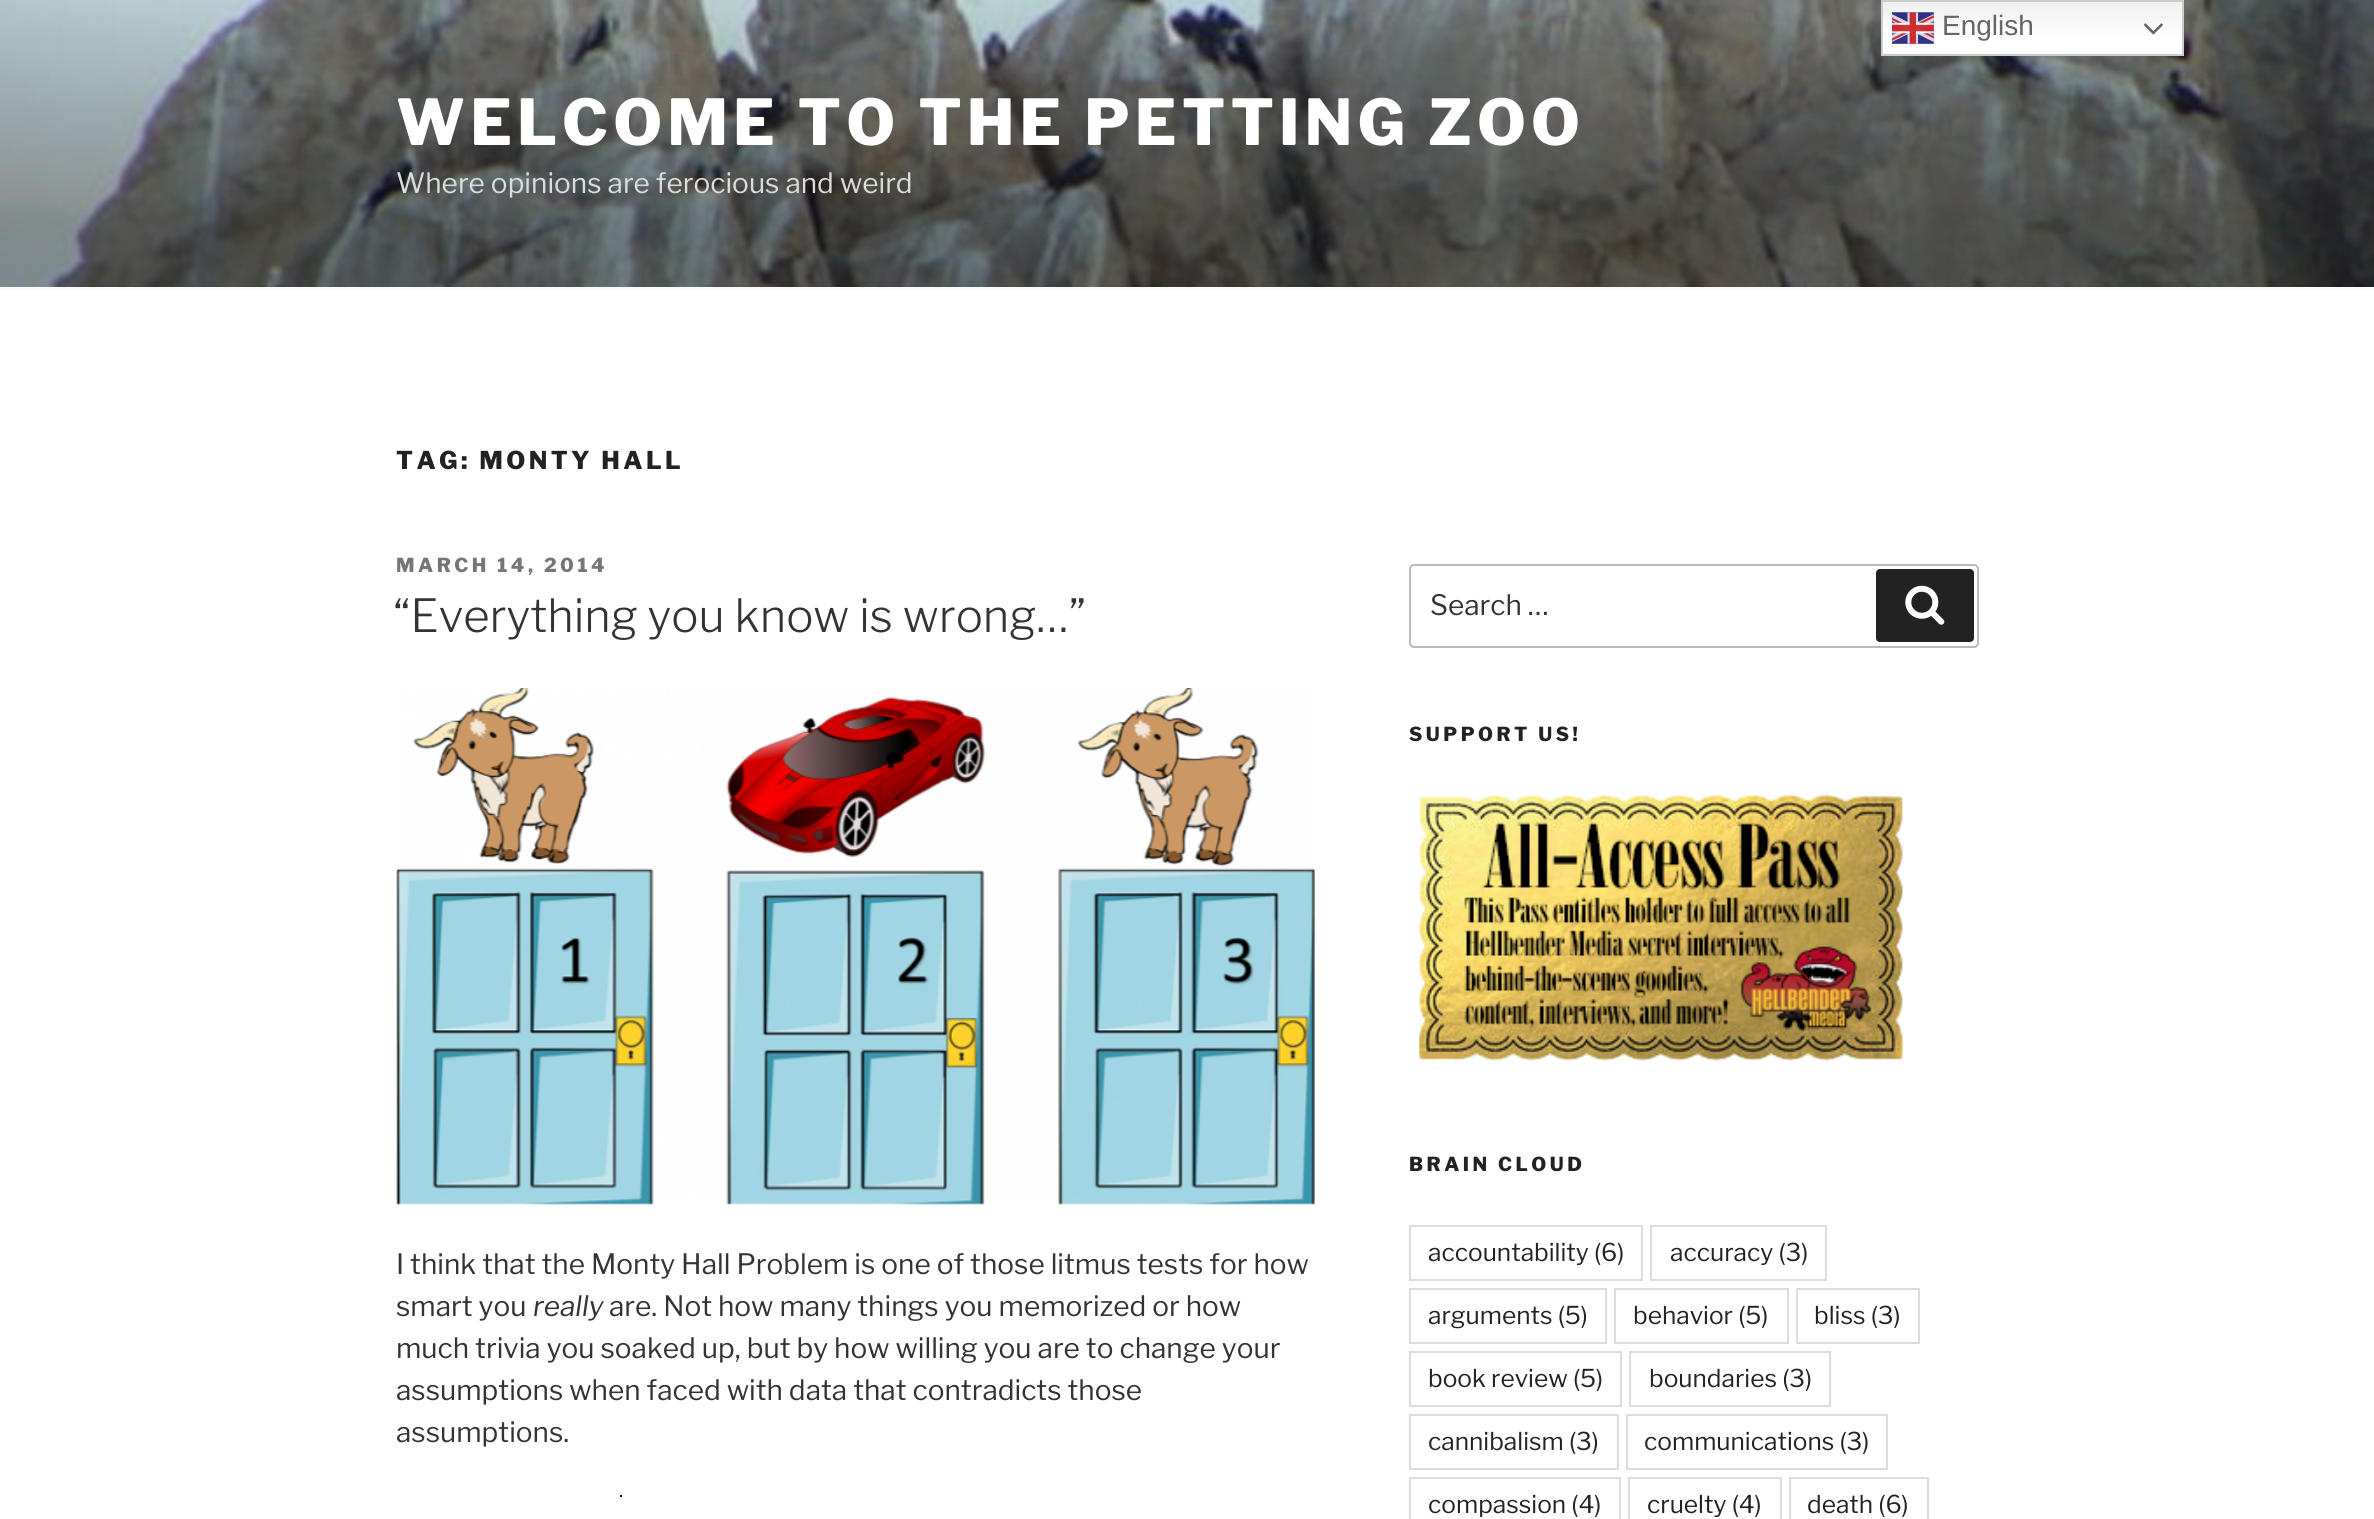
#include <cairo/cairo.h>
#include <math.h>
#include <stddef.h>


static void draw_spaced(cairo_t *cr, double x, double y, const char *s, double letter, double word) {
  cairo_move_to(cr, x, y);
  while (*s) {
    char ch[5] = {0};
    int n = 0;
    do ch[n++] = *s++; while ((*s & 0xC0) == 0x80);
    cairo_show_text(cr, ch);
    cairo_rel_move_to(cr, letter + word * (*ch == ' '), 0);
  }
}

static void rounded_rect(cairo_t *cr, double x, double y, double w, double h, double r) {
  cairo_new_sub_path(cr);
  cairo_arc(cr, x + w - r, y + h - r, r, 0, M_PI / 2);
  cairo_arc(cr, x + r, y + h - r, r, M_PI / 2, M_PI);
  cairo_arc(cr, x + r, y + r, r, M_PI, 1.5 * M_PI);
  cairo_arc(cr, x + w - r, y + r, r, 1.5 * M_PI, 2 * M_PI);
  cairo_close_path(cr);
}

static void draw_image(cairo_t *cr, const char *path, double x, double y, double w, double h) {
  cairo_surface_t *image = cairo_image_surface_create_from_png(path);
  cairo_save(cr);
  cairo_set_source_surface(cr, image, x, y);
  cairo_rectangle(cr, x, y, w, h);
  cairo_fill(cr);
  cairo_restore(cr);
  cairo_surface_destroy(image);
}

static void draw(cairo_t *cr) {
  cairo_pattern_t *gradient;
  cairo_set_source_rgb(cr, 1, 1, 1);
  cairo_paint(cr);
  draw_image(cr, "images/3.png", 0, 0, 2374, 287);
  gradient = cairo_pattern_create_linear(2033, 0, 2033, 56);
  cairo_pattern_add_color_stop_rgba(gradient, 0, 239 / 255.0, 239 / 255.0, 239 / 255.0, 1);
  cairo_pattern_add_color_stop_rgba(gradient, 0.7, 1, 1, 1, 1);
  cairo_set_source(cr, gradient);
  cairo_pattern_destroy(gradient);
  cairo_rectangle(cr, 1883, 2, 299, 52);
  cairo_fill(cr);
  cairo_rectangle(cr, 1882, 1, 301, 54);
  cairo_set_source_rgb(cr, 204 / 255.0, 204 / 255.0, 204 / 255.0);
  cairo_stroke(cr);
  draw_image(cr, "images/1.png", 1892, 12, 42, 32);
  draw_image(cr, "images/2.png", 2144, 23, 19, 12);
  cairo_set_source_rgb(cr, 250 / 255.0, 250 / 255.0, 250 / 255.0);
  cairo_rectangle(cr, 0, 287, 2374, 2);
  cairo_fill(cr);
  draw_image(cr, "images/4.png", 396, 688, 919, 517);
  cairo_set_source_rgb(cr, 15 / 255.0, 15 / 255.0, 15 / 255.0);
  cairo_rectangle(cr, 620, 1495, 2, 2);
  cairo_fill(cr);
  rounded_rect(cr, 1410, 565, 568, 82, 4);
  cairo_set_source_rgb(cr, 187 / 255.0, 187 / 255.0, 187 / 255.0);
  cairo_stroke(cr);
  cairo_set_source_rgb(cr, 34 / 255.0, 34 / 255.0, 34 / 255.0);
  rounded_rect(cr, 1876, 569, 98, 73, 4);
  cairo_fill(cr);
  draw_image(cr, "images/5.png", 1905, 585, 40, 40);
  draw_image(cr, "images/6.png", 1418, 794, 485, 267);
  cairo_rectangle(cr, 1410, 1226, 232, 54);
  cairo_set_source_rgb(cr, 221 / 255.0, 221 / 255.0, 221 / 255.0);
  cairo_stroke(cr);
  cairo_rectangle(cr, 1651, 1226, 175, 54);
  cairo_stroke(cr);
  cairo_rectangle(cr, 1410, 1289, 196, 54);
  cairo_stroke(cr);
  cairo_rectangle(cr, 1615, 1289, 173, 54);
  cairo_stroke(cr);
  cairo_rectangle(cr, 1797, 1289, 122, 54);
  cairo_stroke(cr);
  cairo_rectangle(cr, 1410, 1352, 211, 54);
  cairo_stroke(cr);
  cairo_rectangle(cr, 1630, 1352, 200, 54);
  cairo_stroke(cr);
  cairo_rectangle(cr, 1410, 1415, 208, 54);
  cairo_stroke(cr);
  cairo_rectangle(cr, 1627, 1415, 260, 54);
  cairo_stroke(cr);
  cairo_rectangle(cr, 1410, 1478, 210, 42);
  cairo_stroke(cr);
  cairo_rectangle(cr, 1629, 1478, 152, 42);
  cairo_stroke(cr);
  cairo_rectangle(cr, 1790, 1478, 138, 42);
  cairo_stroke(cr);
  cairo_select_font_face(cr, "Liberation Sans", CAIRO_FONT_SLANT_NORMAL, CAIRO_FONT_WEIGHT_NORMAL);
  cairo_set_font_size(cr, 28);
  cairo_set_source_rgb(cr, 102 / 255.0, 102 / 255.0, 102 / 255.0);
  cairo_move_to(cr, 1942, 35);
  cairo_show_text(cr, "English");
  cairo_select_font_face(cr, "Libre Franklin Thin", CAIRO_FONT_SLANT_NORMAL, CAIRO_FONT_WEIGHT_NORMAL);
  cairo_set_font_size(cr, 63);
  cairo_set_source_rgb(cr, 1, 1, 1);
  draw_spaced(cr, 396, 145, "WELCOME TO THE PETTING ZOO", 5.05, 0);
  cairo_select_font_face(cr, "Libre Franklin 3 Thin", CAIRO_FONT_SLANT_NORMAL, CAIRO_FONT_WEIGHT_NORMAL);
  cairo_set_font_size(cr, 28);
  cairo_set_source_rgb(cr, 219 / 255.0, 220 / 255.0, 220 / 255.0);
  cairo_move_to(cr, 396, 193);
  cairo_show_text(cr, "Where opinions are ferocious and weird");
  cairo_select_font_face(cr, "Libre Franklin Thin", CAIRO_FONT_SLANT_NORMAL, CAIRO_FONT_WEIGHT_NORMAL);
  cairo_set_font_size(cr, 24.5);
  cairo_set_source_rgb(cr, 34 / 255.0, 34 / 255.0, 34 / 255.0);
  draw_spaced(cr, 396, 469, "TAG: MONTY HALL", 3.4, 0);
  cairo_set_font_size(cr, 19.25);
  cairo_set_source_rgb(cr, 118 / 255.0, 118 / 255.0, 118 / 255.0);
  draw_spaced(cr, 396, 572, "MARCH 14, 2014", 3.5, 0);
  cairo_select_font_face(cr, "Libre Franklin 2 Thin", CAIRO_FONT_SLANT_NORMAL, CAIRO_FONT_WEIGHT_NORMAL);
  cairo_set_font_size(cr, 45.5);
  cairo_set_source_rgb(cr, 51 / 255.0, 51 / 255.0, 51 / 255.0);
  cairo_move_to(cr, 393, 632);
  cairo_show_text(cr, "“Everything you know is wrong…”");
  cairo_select_font_face(cr, "Libre Franklin 3 Thin", CAIRO_FONT_SLANT_NORMAL, CAIRO_FONT_WEIGHT_NORMAL);
  cairo_set_font_size(cr, 28);
  cairo_move_to(cr, 396, 1274);
  cairo_show_text(cr, "I think that the Monty Hall Problem is one of those litmus tests for how");
  cairo_move_to(cr, 396, 1316);
  cairo_show_text(cr, "smart you");
  cairo_select_font_face(cr, "Libre Franklin Thin", CAIRO_FONT_SLANT_ITALIC, CAIRO_FONT_WEIGHT_NORMAL);
  cairo_move_to(cr, 533, 1316);
  cairo_show_text(cr, "really");
  cairo_select_font_face(cr, "Libre Franklin 3 Thin", CAIRO_FONT_SLANT_NORMAL, CAIRO_FONT_WEIGHT_NORMAL);
  cairo_move_to(cr, 609, 1316);
  cairo_show_text(cr, "are. Not how many things you memorized or how");
  cairo_move_to(cr, 396, 1358);
  cairo_show_text(cr, "much trivia you soaked up, but by how willing you are to change your");
  cairo_move_to(cr, 396, 1400);
  cairo_show_text(cr, "assumptions when faced with data that contradicts those");
  cairo_move_to(cr, 396, 1442);
  cairo_show_text(cr, "assumptions.");
  cairo_move_to(cr, 1430, 615);
  cairo_show_text(cr, "Search …");
  cairo_select_font_face(cr, "Libre Franklin Thin", CAIRO_FONT_SLANT_NORMAL, CAIRO_FONT_WEIGHT_NORMAL);
  cairo_set_font_size(cr, 19.25);
  cairo_set_source_rgb(cr, 34 / 255.0, 34 / 255.0, 34 / 255.0);
  draw_spaced(cr, 1409, 741, "SUPPORT US!", 3.5, 0);
  draw_spaced(cr, 1409, 1171, "BRAIN CLOUD", 3.5, 0);
  cairo_select_font_face(cr, "Libre Franklin 3 Thin", CAIRO_FONT_SLANT_NORMAL, CAIRO_FONT_WEIGHT_NORMAL);
  cairo_set_font_size(cr, 24.5);
  cairo_move_to(cr, 1428, 1261);
  cairo_show_text(cr, "accountability (6)");
  cairo_move_to(cr, 1670, 1261);
  cairo_show_text(cr, "accuracy (3)");
  cairo_move_to(cr, 1428, 1324);
  cairo_show_text(cr, "arguments (5)");
  cairo_move_to(cr, 1633, 1324);
  cairo_show_text(cr, "behavior (5)");
  cairo_move_to(cr, 1814, 1324);
  cairo_show_text(cr, "bliss (3)");
  cairo_move_to(cr, 1428, 1387);
  cairo_show_text(cr, "book review (5)");
  cairo_move_to(cr, 1649, 1387);
  cairo_show_text(cr, "boundaries (3)");
  cairo_move_to(cr, 1428, 1450);
  cairo_show_text(cr, "cannibalism (3)");
  cairo_move_to(cr, 1644, 1450);
  cairo_show_text(cr, "communications (3)");
  cairo_move_to(cr, 1428, 1513);
  cairo_show_text(cr, "compassion (4)");
  cairo_move_to(cr, 1647, 1513);
  cairo_show_text(cr, "cruelty (4)");
  cairo_move_to(cr, 1807, 1513);
  cairo_show_text(cr, "death (6)");
}

int main(void) {
  cairo_surface_t *surface = cairo_image_surface_create(CAIRO_FORMAT_RGB24, 2374, 1519);
  cairo_t *cr = cairo_create(surface);
  cairo_font_options_t *options = cairo_font_options_create();
  cairo_font_options_set_hint_metrics(options, CAIRO_HINT_METRICS_OFF);
  cairo_font_options_set_hint_style(options, CAIRO_HINT_STYLE_NONE);
  cairo_set_font_options(cr, options);
  cairo_set_miter_limit(cr, 4);
  draw(cr);
  cairo_surface_write_to_png(surface, "out.png");
  cairo_font_options_destroy(options);
  cairo_destroy(cr);
  cairo_surface_destroy(surface);
  return 0;
}
